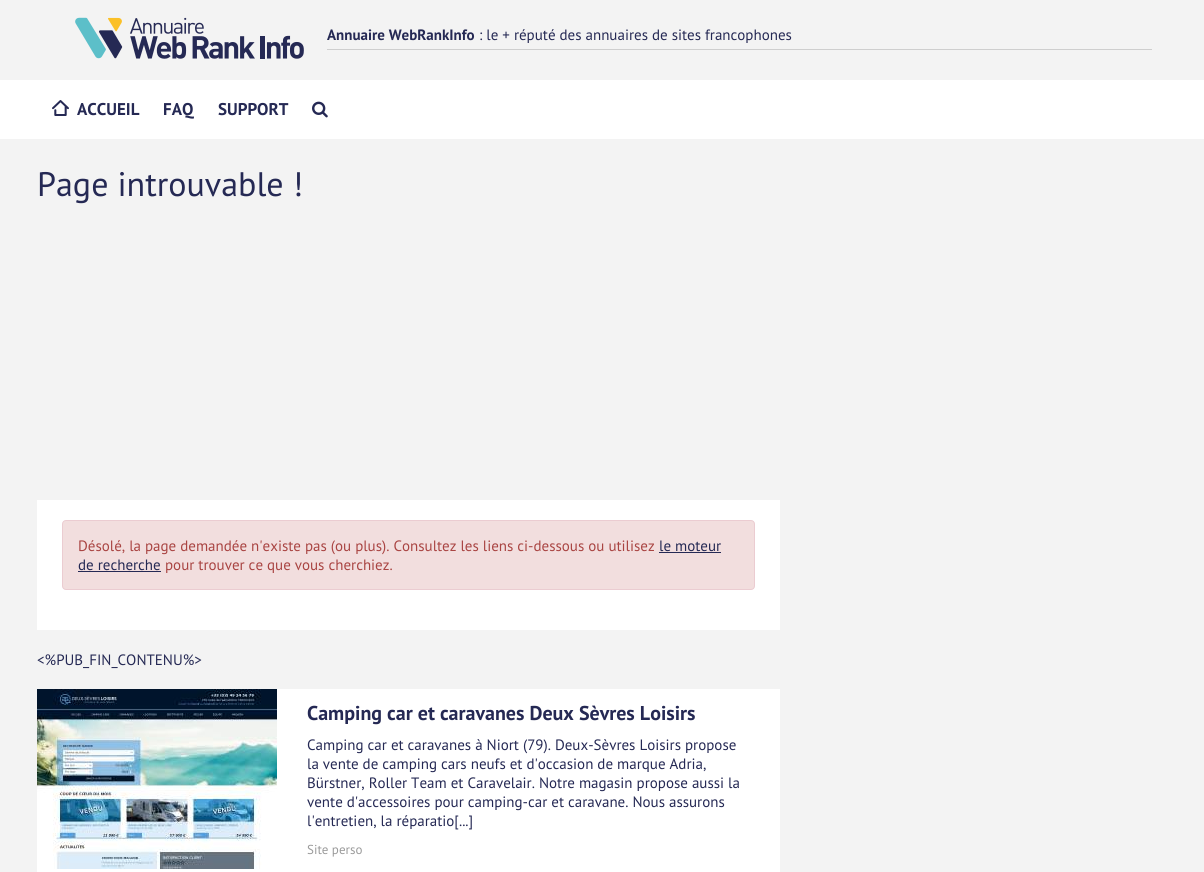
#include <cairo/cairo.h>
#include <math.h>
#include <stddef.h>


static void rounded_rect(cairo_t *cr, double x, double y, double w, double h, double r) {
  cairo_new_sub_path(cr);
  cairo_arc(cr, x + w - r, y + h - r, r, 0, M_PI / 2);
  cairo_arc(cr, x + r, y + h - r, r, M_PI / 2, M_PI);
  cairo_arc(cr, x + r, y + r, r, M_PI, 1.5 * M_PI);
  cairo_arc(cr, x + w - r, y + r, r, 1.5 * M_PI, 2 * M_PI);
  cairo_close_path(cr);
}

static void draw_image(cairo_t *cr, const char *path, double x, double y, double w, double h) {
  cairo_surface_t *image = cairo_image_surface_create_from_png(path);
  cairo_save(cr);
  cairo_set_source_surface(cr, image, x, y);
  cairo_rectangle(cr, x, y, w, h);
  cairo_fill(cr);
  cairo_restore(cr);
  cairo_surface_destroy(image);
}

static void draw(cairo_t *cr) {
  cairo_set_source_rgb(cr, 243 / 255.0, 243 / 255.0, 243 / 255.0);
  cairo_paint(cr);
  draw_image(cr, "images/1.png", 75, 17, 229, 42);
  cairo_set_source_rgb(cr, 206 / 255.0, 206 / 255.0, 206 / 255.0);
  cairo_rectangle(cr, 327, 49, 825, 1);
  cairo_fill(cr);
  cairo_set_source_rgb(cr, 1, 1, 1);
  cairo_rectangle(cr, 0, 80, 1204, 59);
  cairo_fill(cr);
  draw_image(cr, "images/2.png", 52, 100, 17, 16);
  draw_image(cr, "images/3.png", 312, 101, 16, 17);
  cairo_rectangle(cr, 37, 500, 743, 130);
  cairo_fill(cr);
  cairo_set_source_rgb(cr, 242 / 255.0, 222 / 255.0, 222 / 255.0);
  rounded_rect(cr, 62.5, 520.5, 692, 69, 3.5);
  cairo_fill_preserve(cr);
  cairo_set_source_rgb(cr, 235 / 255.0, 204 / 255.0, 209 / 255.0);
  cairo_set_line_width(cr, 1);
  cairo_stroke(cr);
  cairo_set_source_rgb(cr, 37 / 255.0, 41 / 255.0, 84 / 255.0);
  cairo_rectangle(cr, 659, 552, 62, 1);
  cairo_fill(cr);
  cairo_rectangle(cr, 78, 571, 83, 1);
  cairo_fill(cr);
  cairo_set_source_rgb(cr, 1, 1, 1);
  cairo_rectangle(cr, 37, 689, 743, 183);
  cairo_fill(cr);
  draw_image(cr, "images/4.png", 37, 689, 240, 180);
  cairo_select_font_face(cr, "PT Sans", CAIRO_FONT_SLANT_NORMAL, CAIRO_FONT_WEIGHT_BOLD);
  cairo_set_font_size(cr, 15);
  cairo_set_source_rgb(cr, 37 / 255.0, 41 / 255.0, 84 / 255.0);
  cairo_move_to(cr, 327, 40);
  cairo_show_text(cr, "Annuaire WebRankInfo");
  cairo_select_font_face(cr, "PT Sans", CAIRO_FONT_SLANT_NORMAL, CAIRO_FONT_WEIGHT_NORMAL);
  cairo_move_to(cr, 479, 40);
  cairo_show_text(cr, ": le + réputé des annuaires de sites francophones");
  cairo_select_font_face(cr, "PT Sans", CAIRO_FONT_SLANT_NORMAL, CAIRO_FONT_WEIGHT_BOLD);
  cairo_set_font_size(cr, 17);
  cairo_move_to(cr, 77, 115);
  cairo_show_text(cr, "ACCUEIL");
  cairo_move_to(cr, 163, 115);
  cairo_show_text(cr, "FAQ");
  cairo_move_to(cr, 218, 115);
  cairo_show_text(cr, "SUPPORT");
  cairo_select_font_face(cr, "PT Sans", CAIRO_FONT_SLANT_NORMAL, CAIRO_FONT_WEIGHT_NORMAL);
  cairo_set_font_size(cr, 34);
  cairo_move_to(cr, 37, 196);
  cairo_show_text(cr, "Page introuvable !");
  cairo_set_font_size(cr, 15);
  cairo_set_source_rgb(cr, 169 / 255.0, 68 / 255.0, 66 / 255.0);
  cairo_move_to(cr, 78, 551);
  cairo_show_text(cr, "Désolé, la page demandée n'existe pas (ou plus). Consultez les liens ci-dessous ou utilisez");
  cairo_set_source_rgb(cr, 37 / 255.0, 41 / 255.0, 84 / 255.0);
  cairo_move_to(cr, 659, 551);
  cairo_show_text(cr, "le moteur");
  cairo_move_to(cr, 78, 570);
  cairo_show_text(cr, "de recherche");
  cairo_set_source_rgb(cr, 169 / 255.0, 68 / 255.0, 66 / 255.0);
  cairo_move_to(cr, 165, 570);
  cairo_show_text(cr, "pour trouver ce que vous cherchiez.");
  cairo_set_source_rgb(cr, 37 / 255.0, 41 / 255.0, 84 / 255.0);
  cairo_move_to(cr, 37, 665);
  cairo_show_text(cr, "<%PUB_FIN_CONTENU%>");
  cairo_select_font_face(cr, "PT Sans", CAIRO_FONT_SLANT_NORMAL, CAIRO_FONT_WEIGHT_BOLD);
  cairo_set_font_size(cr, 20);
  cairo_move_to(cr, 307, 720);
  cairo_show_text(cr, "Camping car et caravanes Deux Sèvres Loisirs");
  cairo_select_font_face(cr, "PT Sans", CAIRO_FONT_SLANT_NORMAL, CAIRO_FONT_WEIGHT_NORMAL);
  cairo_set_font_size(cr, 15);
  cairo_move_to(cr, 307, 750);
  cairo_show_text(cr, "Camping car et caravanes à Niort (79). Deux-Sèvres Loisirs propose");
  cairo_move_to(cr, 307, 769);
  cairo_show_text(cr, "la vente de camping cars neufs et d'occasion de marque Adria,");
  cairo_move_to(cr, 307, 788);
  cairo_show_text(cr, "Bürstner, Roller Team et Caravelair. Notre magasin propose aussi la");
  cairo_move_to(cr, 307, 807);
  cairo_show_text(cr, "vente d'accessoires pour camping-car et caravane. Nous assurons");
  cairo_move_to(cr, 307, 826);
  cairo_show_text(cr, "l'entretien, la réparatio[...]");
  cairo_set_font_size(cr, 13);
  cairo_set_source_rgb(cr, 154 / 255.0, 154 / 255.0, 154 / 255.0);
  cairo_move_to(cr, 307, 854);
  cairo_show_text(cr, "Site perso");
}

int main(void) {
  cairo_surface_t *surface = cairo_image_surface_create(CAIRO_FORMAT_RGB24, 1204, 872);
  cairo_t *cr = cairo_create(surface);
  cairo_font_options_t *options = cairo_font_options_create();
  cairo_font_options_set_hint_metrics(options, CAIRO_HINT_METRICS_OFF);
  cairo_font_options_set_hint_style(options, CAIRO_HINT_STYLE_NONE);
  cairo_set_font_options(cr, options);
  cairo_set_miter_limit(cr, 4);
  draw(cr);
  cairo_surface_write_to_png(surface, "out.png");
  cairo_font_options_destroy(options);
  cairo_destroy(cr);
  cairo_surface_destroy(surface);
  return 0;
}
